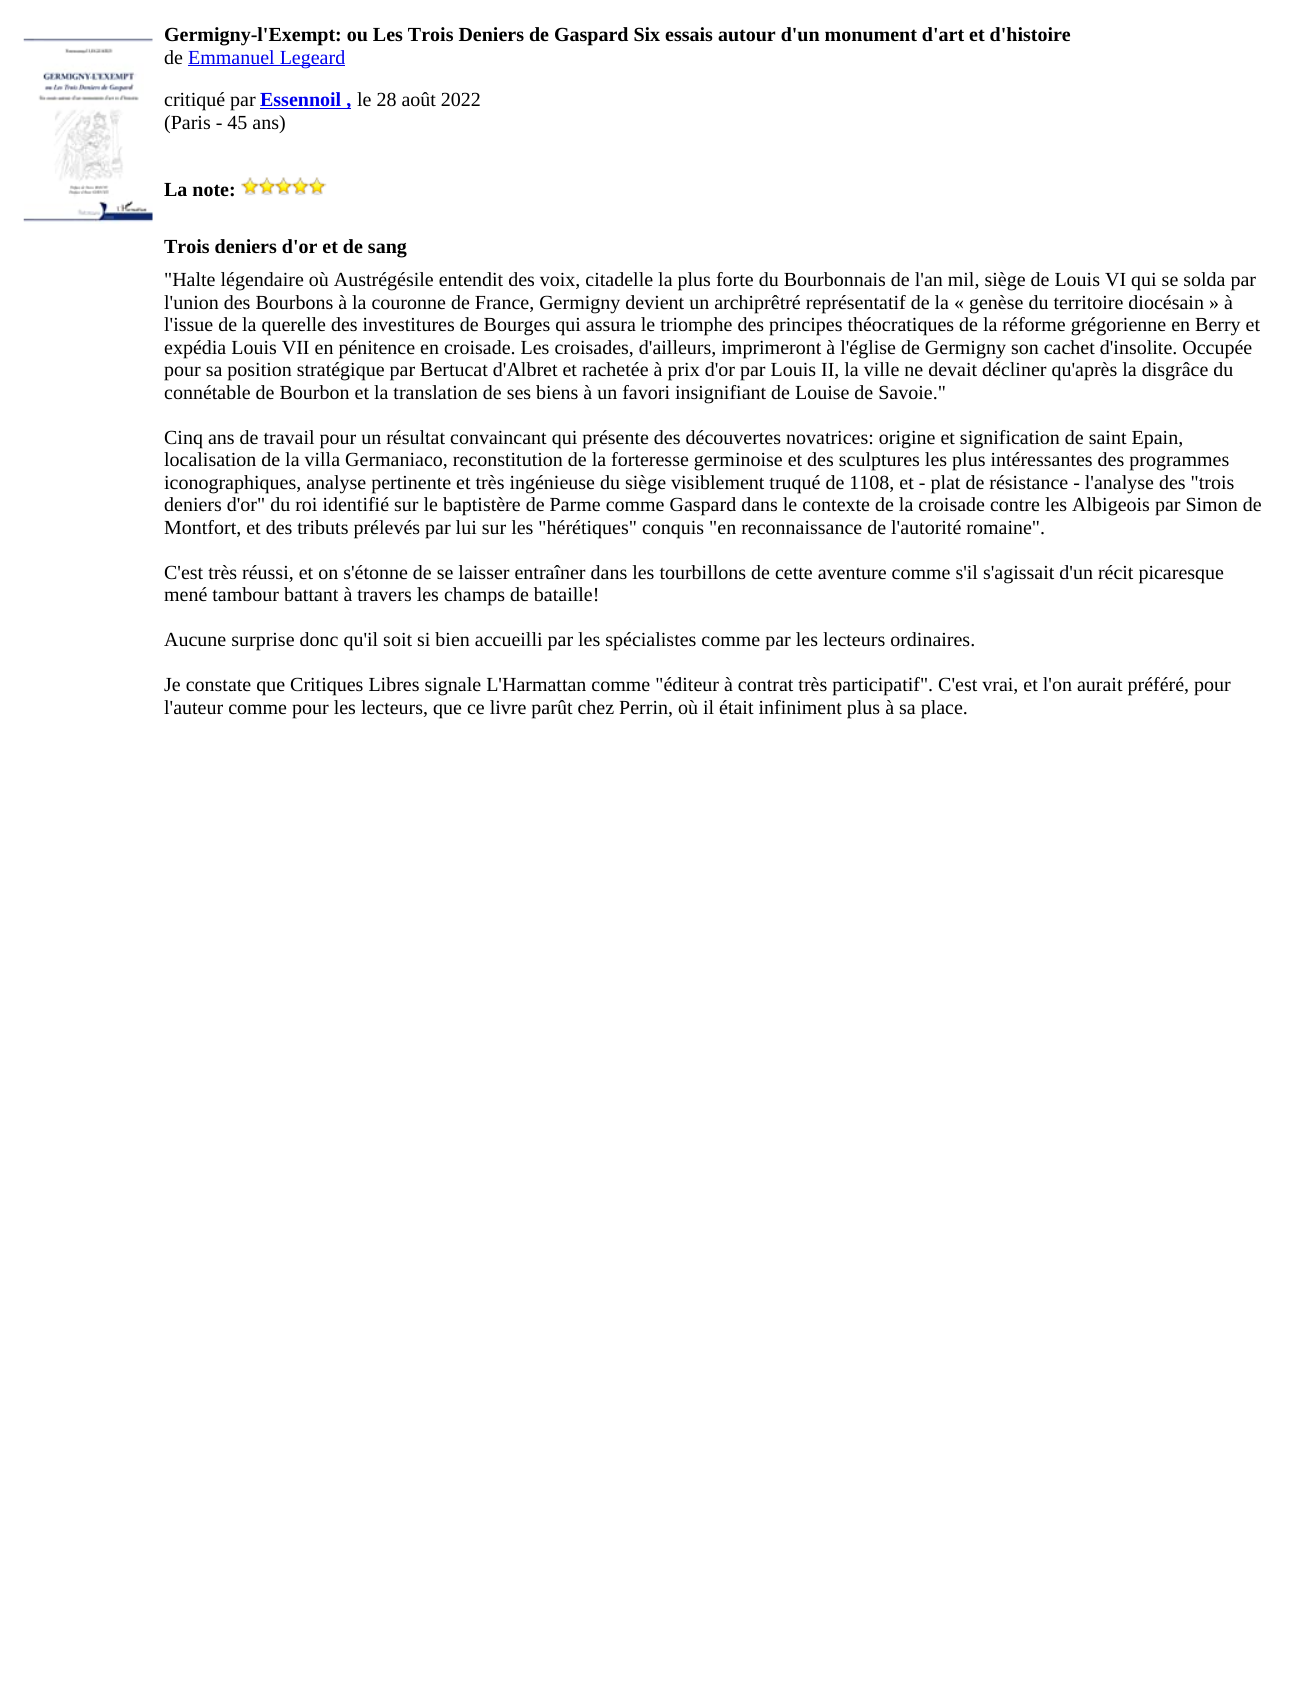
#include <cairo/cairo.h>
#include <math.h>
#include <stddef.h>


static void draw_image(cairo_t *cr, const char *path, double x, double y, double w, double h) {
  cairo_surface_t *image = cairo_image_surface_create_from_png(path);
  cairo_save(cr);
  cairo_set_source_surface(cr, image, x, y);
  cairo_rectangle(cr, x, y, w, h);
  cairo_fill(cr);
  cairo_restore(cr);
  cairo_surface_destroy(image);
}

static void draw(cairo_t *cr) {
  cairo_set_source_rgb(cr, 1, 1, 1);
  cairo_paint(cr);
  draw_image(cr, "images/1.png", 23, 38, 130, 186);
  cairo_set_source_rgb(cr, 0, 0, 238 / 255.0);
  cairo_rectangle(cr, 188, 65, 157, 1);
  cairo_fill(cr);
  cairo_rectangle(cr, 260, 108, 91, 1);
  cairo_fill(cr);
  draw_image(cr, "images/2.png", 241, 177, 86, 19);
  cairo_select_font_face(cr, "Liberation Serif", CAIRO_FONT_SLANT_NORMAL, CAIRO_FONT_WEIGHT_BOLD);
  cairo_set_font_size(cr, 20);
  cairo_set_source_rgb(cr, 0, 0, 0);
  cairo_move_to(cr, 164, 41);
  cairo_show_text(cr, "Germigny-l'Exempt: ou Les Trois Deniers de Gaspard Six essais autour d'un monument d'art et d'histoire");
  cairo_select_font_face(cr, "Liberation Serif", CAIRO_FONT_SLANT_NORMAL, CAIRO_FONT_WEIGHT_NORMAL);
  cairo_move_to(cr, 164, 64);
  cairo_show_text(cr, "de");
  cairo_set_source_rgb(cr, 0, 0, 238 / 255.0);
  cairo_move_to(cr, 188, 64);
  cairo_show_text(cr, "Emmanuel Legeard");
  cairo_set_source_rgb(cr, 0, 0, 0);
  cairo_move_to(cr, 164, 106);
  cairo_show_text(cr, "critiqué par");
  cairo_select_font_face(cr, "Liberation Serif", CAIRO_FONT_SLANT_NORMAL, CAIRO_FONT_WEIGHT_BOLD);
  cairo_set_source_rgb(cr, 0, 0, 238 / 255.0);
  cairo_move_to(cr, 260, 106);
  cairo_show_text(cr, "Essennoil ,");
  cairo_select_font_face(cr, "Liberation Serif", CAIRO_FONT_SLANT_NORMAL, CAIRO_FONT_WEIGHT_NORMAL);
  cairo_set_source_rgb(cr, 0, 0, 0);
  cairo_move_to(cr, 357, 106);
  cairo_show_text(cr, "le 28 août 2022");
  cairo_move_to(cr, 164, 129);
  cairo_show_text(cr, "(Paris - 45 ans)");
  cairo_select_font_face(cr, "Liberation Serif", CAIRO_FONT_SLANT_NORMAL, CAIRO_FONT_WEIGHT_BOLD);
  cairo_move_to(cr, 164, 196);
  cairo_show_text(cr, "La note:");
  cairo_move_to(cr, 164, 253);
  cairo_show_text(cr, "Trois deniers d'or et de sang");
  cairo_select_font_face(cr, "Liberation Serif", CAIRO_FONT_SLANT_NORMAL, CAIRO_FONT_WEIGHT_NORMAL);
  cairo_move_to(cr, 164, 286);
  cairo_show_text(cr, "\"Halte légendaire où Austrégésile entendit des voix, citadelle la plus forte du Bourbonnais de l'an mil, siège de Louis VI qui se solda par");
  cairo_move_to(cr, 164, 309);
  cairo_show_text(cr, "l'union des Bourbons à la couronne de France, Germigny devient un archiprêtré représentatif de la « genèse du territoire diocésain » à");
  cairo_move_to(cr, 164, 331);
  cairo_show_text(cr, "l'issue de la querelle des investitures de Bourges qui assura le triomphe des principes théocratiques de la réforme grégorienne en Berry et");
  cairo_move_to(cr, 164, 354);
  cairo_show_text(cr, "expédia Louis VII en pénitence en croisade. Les croisades, d'ailleurs, imprimeront à l'église de Germigny son cachet d'insolite. Occupée");
  cairo_move_to(cr, 164, 376);
  cairo_show_text(cr, "pour sa position stratégique par Bertucat d'Albret et rachetée à prix d'or par Louis II, la ville ne devait décliner qu'après la disgrâce du");
  cairo_move_to(cr, 164, 399);
  cairo_show_text(cr, "connétable de Bourbon et la translation de ses biens à un favori insignifiant de Louise de Savoie.\"");
  cairo_move_to(cr, 164, 444);
  cairo_show_text(cr, "Cinq ans de travail pour un résultat convaincant qui présente des découvertes novatrices: origine et signification de saint Epain,");
  cairo_move_to(cr, 164, 466);
  cairo_show_text(cr, "localisation de la villa Germaniaco, reconstitution de la forteresse germinoise et des sculptures les plus intéressantes des programmes");
  cairo_move_to(cr, 164, 489);
  cairo_show_text(cr, "iconographiques, analyse pertinente et très ingénieuse du siège visiblement truqué de 1108, et - plat de résistance - l'analyse des \"trois");
  cairo_move_to(cr, 164, 511);
  cairo_show_text(cr, "deniers d'or\" du roi identifié sur le baptistère de Parme comme Gaspard dans le contexte de la croisade contre les Albigeois par Simon de");
  cairo_move_to(cr, 164, 534);
  cairo_show_text(cr, "Montfort, et des tributs prélevés par lui sur les \"hérétiques\" conquis \"en reconnaissance de l'autorité romaine\".");
  cairo_move_to(cr, 164, 579);
  cairo_show_text(cr, "C'est très réussi, et on s'étonne de se laisser entraîner dans les tourbillons de cette aventure comme s'il s'agissait d'un récit picaresque");
  cairo_move_to(cr, 164, 601);
  cairo_show_text(cr, "mené tambour battant à travers les champs de bataille!");
  cairo_move_to(cr, 164, 646);
  cairo_show_text(cr, "Aucune surprise donc qu'il soit si bien accueilli par les spécialistes comme par les lecteurs ordinaires.");
  cairo_move_to(cr, 164, 691);
  cairo_show_text(cr, "Je constate que Critiques Libres signale L'Harmattan comme \"éditeur à contrat très participatif\". C'est vrai, et l'on aurait préféré, pour");
  cairo_move_to(cr, 164, 714);
  cairo_show_text(cr, "l'auteur comme pour les lecteurs, que ce livre parût chez Perrin, où il était infiniment plus à sa place.");
}

int main(void) {
  cairo_surface_t *surface = cairo_image_surface_create(CAIRO_FORMAT_RGB24, 1293, 1706);
  cairo_t *cr = cairo_create(surface);
  cairo_font_options_t *options = cairo_font_options_create();
  cairo_font_options_set_hint_metrics(options, CAIRO_HINT_METRICS_OFF);
  cairo_font_options_set_hint_style(options, CAIRO_HINT_STYLE_NONE);
  cairo_set_font_options(cr, options);
  cairo_set_miter_limit(cr, 4);
  draw(cr);
  cairo_surface_write_to_png(surface, "out.png");
  cairo_font_options_destroy(options);
  cairo_destroy(cr);
  cairo_surface_destroy(surface);
  return 0;
}
